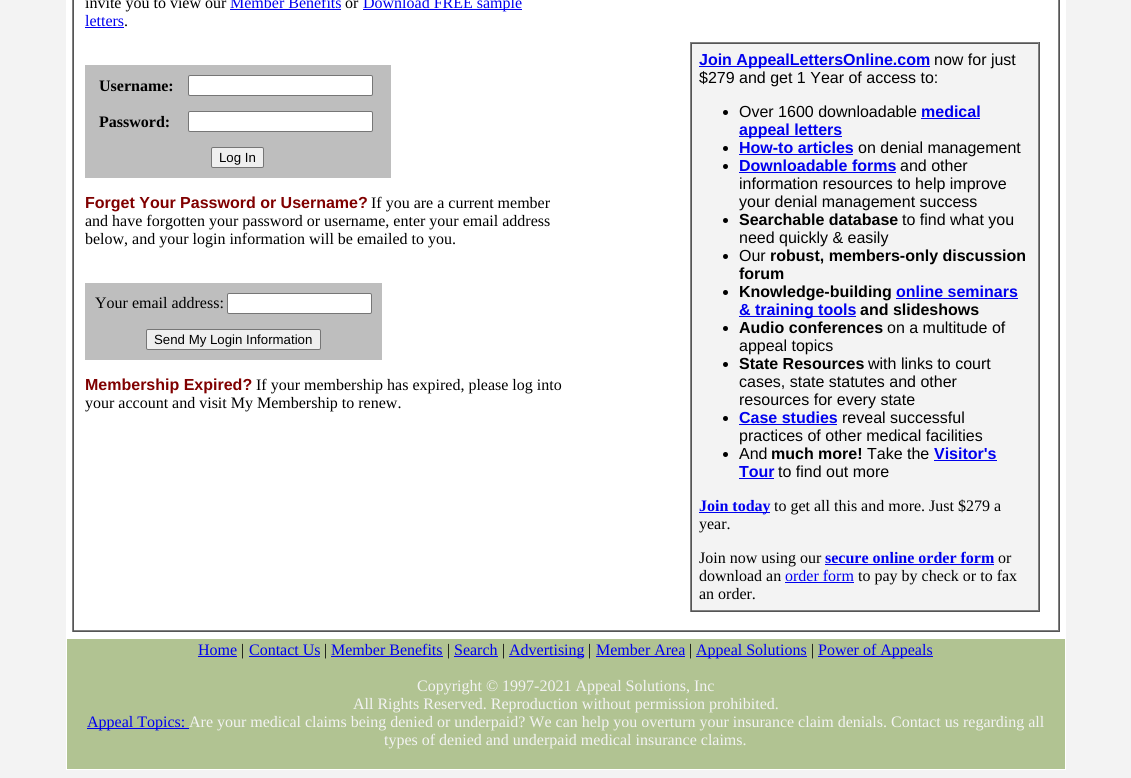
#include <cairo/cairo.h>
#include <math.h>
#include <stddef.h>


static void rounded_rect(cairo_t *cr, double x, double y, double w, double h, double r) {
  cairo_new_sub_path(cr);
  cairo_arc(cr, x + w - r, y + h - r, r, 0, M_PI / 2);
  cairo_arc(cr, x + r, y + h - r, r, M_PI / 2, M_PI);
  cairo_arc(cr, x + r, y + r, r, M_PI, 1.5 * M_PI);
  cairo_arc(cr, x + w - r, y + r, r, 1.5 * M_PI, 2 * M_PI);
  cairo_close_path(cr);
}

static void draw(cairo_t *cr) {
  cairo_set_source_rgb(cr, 243 / 255.0, 243 / 255.0, 243 / 255.0);
  cairo_paint(cr);
  cairo_set_source_rgb(cr, 1, 1, 1);
  cairo_rectangle(cr, 66, 0, 1000, 770);
  cairo_fill(cr);
  cairo_set_source_rgb(cr, 85 / 255.0, 85 / 255.0, 85 / 255.0);
  cairo_rectangle(cr, 1059, 0, 1, 632);
  cairo_fill(cr);
  cairo_rectangle(cr, 72, 631, 988, 1);
  cairo_fill(cr);
  cairo_set_source_rgb(cr, 128 / 255.0, 128 / 255.0, 128 / 255.0);
  cairo_rectangle(cr, 72, 0, 1, 632);
  cairo_fill(cr);
  cairo_rectangle(cr, 1058, 0, 1, 631);
  cairo_fill(cr);
  cairo_rectangle(cr, 73, 630, 986, 1);
  cairo_fill(cr);
  cairo_set_source_rgb(cr, 85 / 255.0, 85 / 255.0, 85 / 255.0);
  cairo_rectangle(cr, 73, 0, 1, 631);
  cairo_fill(cr);
  cairo_set_source_rgb(cr, 0, 0, 238 / 255.0);
  cairo_rectangle(cr, 230, 9, 111, 1);
  cairo_fill(cr);
  cairo_rectangle(cr, 363, 9, 159, 1);
  cairo_fill(cr);
  cairo_rectangle(cr, 85, 27, 39, 1);
  cairo_fill(cr);
  cairo_set_source_rgb(cr, 190 / 255.0, 190 / 255.0, 190 / 255.0);
  cairo_rectangle(cr, 85, 65, 306, 113);
  cairo_fill(cr);
  cairo_set_source_rgb(cr, 1, 1, 1);
  rounded_rect(cr, 188.5, 75.5, 184, 20, 1.5);
  cairo_fill_preserve(cr);
  cairo_set_source_rgb(cr, 118 / 255.0, 118 / 255.0, 118 / 255.0);
  cairo_set_line_width(cr, 1);
  cairo_stroke(cr);
  cairo_set_source_rgb(cr, 1, 1, 1);
  rounded_rect(cr, 188.5, 111.5, 184, 20, 1.5);
  cairo_fill_preserve(cr);
  cairo_set_source_rgb(cr, 118 / 255.0, 118 / 255.0, 118 / 255.0);
  cairo_stroke(cr);
  cairo_set_source_rgb(cr, 239 / 255.0, 239 / 255.0, 239 / 255.0);
  rounded_rect(cr, 211.5, 147.5, 52, 20, 1.5);
  cairo_fill_preserve(cr);
  cairo_set_source_rgb(cr, 118 / 255.0, 118 / 255.0, 118 / 255.0);
  cairo_stroke(cr);
  cairo_set_source_rgb(cr, 190 / 255.0, 190 / 255.0, 190 / 255.0);
  cairo_rectangle(cr, 85, 283, 297, 77);
  cairo_fill(cr);
  cairo_set_source_rgb(cr, 1, 1, 1);
  rounded_rect(cr, 227.5, 293.5, 144, 20, 1.5);
  cairo_fill_preserve(cr);
  cairo_set_source_rgb(cr, 118 / 255.0, 118 / 255.0, 118 / 255.0);
  cairo_stroke(cr);
  cairo_set_source_rgb(cr, 239 / 255.0, 239 / 255.0, 239 / 255.0);
  rounded_rect(cr, 146.5, 329.5, 174, 20, 1.5);
  cairo_fill_preserve(cr);
  cairo_set_source_rgb(cr, 118 / 255.0, 118 / 255.0, 118 / 255.0);
  cairo_stroke(cr);
  cairo_set_source_rgb(cr, 128 / 255.0, 128 / 255.0, 128 / 255.0);
  cairo_rectangle(cr, 690, 42, 350, 1);
  cairo_fill(cr);
  cairo_set_source_rgb(cr, 85 / 255.0, 85 / 255.0, 85 / 255.0);
  cairo_rectangle(cr, 1039, 42, 1, 570);
  cairo_fill(cr);
  cairo_rectangle(cr, 690, 611, 350, 1);
  cairo_fill(cr);
  cairo_set_source_rgb(cr, 128 / 255.0, 128 / 255.0, 128 / 255.0);
  cairo_rectangle(cr, 690, 42, 1, 570);
  cairo_fill(cr);
  cairo_set_source_rgb(cr, 243 / 255.0, 243 / 255.0, 243 / 255.0);
  cairo_rectangle(cr, 692, 44, 346, 566);
  cairo_fill(cr);
  cairo_set_source_rgb(cr, 85 / 255.0, 85 / 255.0, 85 / 255.0);
  cairo_rectangle(cr, 691, 43, 348, 1);
  cairo_fill(cr);
  cairo_set_source_rgb(cr, 128 / 255.0, 128 / 255.0, 128 / 255.0);
  cairo_rectangle(cr, 1038, 43, 1, 568);
  cairo_fill(cr);
  cairo_rectangle(cr, 691, 610, 348, 1);
  cairo_fill(cr);
  cairo_set_source_rgb(cr, 85 / 255.0, 85 / 255.0, 85 / 255.0);
  cairo_rectangle(cr, 691, 43, 1, 568);
  cairo_fill(cr);
  cairo_set_source_rgb(cr, 0, 0, 238 / 255.0);
  cairo_rectangle(cr, 699, 66, 231, 1);
  cairo_fill(cr);
  cairo_set_source_rgb(cr, 0, 0, 0);
  cairo_arc(cr, 725.5, 112.5, 2.5, 0, 2 * M_PI);
  cairo_fill(cr);
  cairo_set_source_rgb(cr, 0, 0, 238 / 255.0);
  cairo_rectangle(cr, 921, 118, 59, 1);
  cairo_fill(cr);
  cairo_rectangle(cr, 739, 136, 103, 1);
  cairo_fill(cr);
  cairo_set_source_rgb(cr, 0, 0, 0);
  cairo_arc(cr, 725.5, 148.5, 2.5, 0, 2 * M_PI);
  cairo_fill(cr);
  cairo_set_source_rgb(cr, 0, 0, 238 / 255.0);
  cairo_rectangle(cr, 739, 154, 114, 1);
  cairo_fill(cr);
  cairo_set_source_rgb(cr, 0, 0, 0);
  cairo_arc(cr, 725.5, 166.5, 2.5, 0, 2 * M_PI);
  cairo_fill(cr);
  cairo_set_source_rgb(cr, 0, 0, 238 / 255.0);
  cairo_rectangle(cr, 739, 172, 157, 1);
  cairo_fill(cr);
  cairo_set_source_rgb(cr, 0, 0, 0);
  cairo_arc(cr, 725.5, 220.5, 2.5, 0, 2 * M_PI);
  cairo_fill(cr);
  cairo_arc(cr, 725.5, 256.5, 2.5, 0, 2 * M_PI);
  cairo_fill(cr);
  cairo_arc(cr, 725.5, 292.5, 2.5, 0, 2 * M_PI);
  cairo_fill(cr);
  cairo_set_source_rgb(cr, 0, 0, 238 / 255.0);
  cairo_rectangle(cr, 896, 298, 122, 1);
  cairo_fill(cr);
  cairo_rectangle(cr, 739, 316, 117, 1);
  cairo_fill(cr);
  cairo_set_source_rgb(cr, 0, 0, 0);
  cairo_arc(cr, 725.5, 328.5, 2.5, 0, 2 * M_PI);
  cairo_fill(cr);
  cairo_arc(cr, 725.5, 364.5, 2.5, 0, 2 * M_PI);
  cairo_fill(cr);
  cairo_arc(cr, 725.5, 418.5, 2.5, 0, 2 * M_PI);
  cairo_fill(cr);
  cairo_set_source_rgb(cr, 0, 0, 238 / 255.0);
  cairo_rectangle(cr, 739, 424, 98, 1);
  cairo_fill(cr);
  cairo_set_source_rgb(cr, 0, 0, 0);
  cairo_arc(cr, 725.5, 454.5, 2.5, 0, 2 * M_PI);
  cairo_fill(cr);
  cairo_set_source_rgb(cr, 0, 0, 238 / 255.0);
  cairo_rectangle(cr, 934, 460, 63, 1);
  cairo_fill(cr);
  cairo_rectangle(cr, 739, 478, 35, 1);
  cairo_fill(cr);
  cairo_rectangle(cr, 699, 512, 71, 1);
  cairo_fill(cr);
  cairo_rectangle(cr, 825, 564, 169, 1);
  cairo_fill(cr);
  cairo_rectangle(cr, 785, 582, 69, 1);
  cairo_fill(cr);
  cairo_set_source_rgb(cr, 177 / 255.0, 195 / 255.0, 146 / 255.0);
  cairo_rectangle(cr, 67, 639, 998, 130);
  cairo_fill(cr);
  cairo_set_source_rgb(cr, 0, 0, 238 / 255.0);
  cairo_rectangle(cr, 198, 656, 39, 1);
  cairo_fill(cr);
  cairo_rectangle(cr, 249, 656, 71, 1);
  cairo_fill(cr);
  cairo_rectangle(cr, 331, 656, 112, 1);
  cairo_fill(cr);
  cairo_rectangle(cr, 454, 656, 44, 1);
  cairo_fill(cr);
  cairo_rectangle(cr, 509, 656, 75, 1);
  cairo_fill(cr);
  cairo_rectangle(cr, 596, 656, 89, 1);
  cairo_fill(cr);
  cairo_rectangle(cr, 696, 656, 111, 1);
  cairo_fill(cr);
  cairo_rectangle(cr, 818, 656, 115, 1);
  cairo_fill(cr);
  cairo_rectangle(cr, 87, 728, 102, 1);
  cairo_fill(cr);
  cairo_select_font_face(cr, "Liberation Serif", CAIRO_FONT_SLANT_NORMAL, CAIRO_FONT_WEIGHT_NORMAL);
  cairo_set_font_size(cr, 16);
  cairo_set_source_rgb(cr, 0, 0, 0);
  cairo_move_to(cr, 85, 8);
  cairo_show_text(cr, "invite you to view our");
  cairo_set_source_rgb(cr, 0, 0, 238 / 255.0);
  cairo_move_to(cr, 230, 8);
  cairo_show_text(cr, "Member Benefits");
  cairo_set_source_rgb(cr, 0, 0, 0);
  cairo_move_to(cr, 345, 8);
  cairo_show_text(cr, "or");
  cairo_set_source_rgb(cr, 0, 0, 238 / 255.0);
  cairo_move_to(cr, 363, 8);
  cairo_show_text(cr, "Download FREE sample");
  cairo_move_to(cr, 85, 26);
  cairo_show_text(cr, "letters");
  cairo_set_source_rgb(cr, 0, 0, 0);
  cairo_move_to(cr, 124, 26);
  cairo_show_text(cr, ".");
  cairo_select_font_face(cr, "Liberation Serif", CAIRO_FONT_SLANT_NORMAL, CAIRO_FONT_WEIGHT_BOLD);
  cairo_move_to(cr, 99, 91);
  cairo_show_text(cr, "Username:");
  cairo_move_to(cr, 99, 127);
  cairo_show_text(cr, "Password:");
  cairo_select_font_face(cr, "Liberation Sans", CAIRO_FONT_SLANT_NORMAL, CAIRO_FONT_WEIGHT_NORMAL);
  cairo_set_font_size(cr, 13.25);
  cairo_move_to(cr, 219, 162);
  cairo_show_text(cr, "Log In");
  cairo_select_font_face(cr, "Liberation Sans", CAIRO_FONT_SLANT_NORMAL, CAIRO_FONT_WEIGHT_BOLD);
  cairo_set_font_size(cr, 16);
  cairo_set_source_rgb(cr, 128 / 255.0, 0, 0);
  cairo_move_to(cr, 85, 208);
  cairo_show_text(cr, "Forget Your Password or Username?");
  cairo_select_font_face(cr, "Liberation Serif", CAIRO_FONT_SLANT_NORMAL, CAIRO_FONT_WEIGHT_NORMAL);
  cairo_set_source_rgb(cr, 0, 0, 0);
  cairo_move_to(cr, 371, 208);
  cairo_show_text(cr, "If you are a current member");
  cairo_move_to(cr, 85, 226);
  cairo_show_text(cr, "and have forgotten your password or username, enter your email address");
  cairo_move_to(cr, 85, 244);
  cairo_show_text(cr, "below, and your login information will be emailed to you.");
  cairo_move_to(cr, 95, 308);
  cairo_show_text(cr, "Your email address:");
  cairo_select_font_face(cr, "Liberation Sans", CAIRO_FONT_SLANT_NORMAL, CAIRO_FONT_WEIGHT_NORMAL);
  cairo_set_font_size(cr, 13.25);
  cairo_move_to(cr, 154, 344);
  cairo_show_text(cr, "Send My Login Information");
  cairo_select_font_face(cr, "Liberation Sans", CAIRO_FONT_SLANT_NORMAL, CAIRO_FONT_WEIGHT_BOLD);
  cairo_set_font_size(cr, 16);
  cairo_set_source_rgb(cr, 128 / 255.0, 0, 0);
  cairo_move_to(cr, 85, 390);
  cairo_show_text(cr, "Membership Expired?");
  cairo_select_font_face(cr, "Liberation Serif", CAIRO_FONT_SLANT_NORMAL, CAIRO_FONT_WEIGHT_NORMAL);
  cairo_set_source_rgb(cr, 0, 0, 0);
  cairo_move_to(cr, 256, 390);
  cairo_show_text(cr, "If your membership has expired, please log into");
  cairo_move_to(cr, 85, 408);
  cairo_show_text(cr, "your account and visit My Membership to renew.");
  cairo_select_font_face(cr, "Liberation Sans", CAIRO_FONT_SLANT_NORMAL, CAIRO_FONT_WEIGHT_BOLD);
  cairo_set_source_rgb(cr, 0, 0, 238 / 255.0);
  cairo_move_to(cr, 699, 65);
  cairo_show_text(cr, "Join AppealLettersOnline.com");
  cairo_select_font_face(cr, "Liberation Sans", CAIRO_FONT_SLANT_NORMAL, CAIRO_FONT_WEIGHT_NORMAL);
  cairo_set_source_rgb(cr, 0, 0, 0);
  cairo_move_to(cr, 934, 65);
  cairo_show_text(cr, "now for just");
  cairo_move_to(cr, 699, 83);
  cairo_show_text(cr, "$279 and get 1 Year of access to:");
  cairo_move_to(cr, 739, 117);
  cairo_show_text(cr, "Over 1600 downloadable");
  cairo_select_font_face(cr, "Liberation Sans", CAIRO_FONT_SLANT_NORMAL, CAIRO_FONT_WEIGHT_BOLD);
  cairo_set_source_rgb(cr, 0, 0, 238 / 255.0);
  cairo_move_to(cr, 921, 117);
  cairo_show_text(cr, "medical");
  cairo_move_to(cr, 739, 135);
  cairo_show_text(cr, "appeal letters");
  cairo_move_to(cr, 739, 153);
  cairo_show_text(cr, "How-to articles");
  cairo_select_font_face(cr, "Liberation Sans", CAIRO_FONT_SLANT_NORMAL, CAIRO_FONT_WEIGHT_NORMAL);
  cairo_set_source_rgb(cr, 0, 0, 0);
  cairo_move_to(cr, 858, 153);
  cairo_show_text(cr, "on denial management");
  cairo_select_font_face(cr, "Liberation Sans", CAIRO_FONT_SLANT_NORMAL, CAIRO_FONT_WEIGHT_BOLD);
  cairo_set_source_rgb(cr, 0, 0, 238 / 255.0);
  cairo_move_to(cr, 739, 171);
  cairo_show_text(cr, "Downloadable forms");
  cairo_select_font_face(cr, "Liberation Sans", CAIRO_FONT_SLANT_NORMAL, CAIRO_FONT_WEIGHT_NORMAL);
  cairo_set_source_rgb(cr, 0, 0, 0);
  cairo_move_to(cr, 900, 171);
  cairo_show_text(cr, "and other");
  cairo_move_to(cr, 739, 189);
  cairo_show_text(cr, "information resources to help improve");
  cairo_move_to(cr, 739, 207);
  cairo_show_text(cr, "your denial management success");
  cairo_select_font_face(cr, "Liberation Sans", CAIRO_FONT_SLANT_NORMAL, CAIRO_FONT_WEIGHT_BOLD);
  cairo_move_to(cr, 739, 225);
  cairo_show_text(cr, "Searchable database");
  cairo_select_font_face(cr, "Liberation Sans", CAIRO_FONT_SLANT_NORMAL, CAIRO_FONT_WEIGHT_NORMAL);
  cairo_move_to(cr, 902, 225);
  cairo_show_text(cr, "to find what you");
  cairo_move_to(cr, 739, 243);
  cairo_show_text(cr, "need quickly & easily");
  cairo_move_to(cr, 739, 261);
  cairo_show_text(cr, "Our");
  cairo_select_font_face(cr, "Liberation Sans", CAIRO_FONT_SLANT_NORMAL, CAIRO_FONT_WEIGHT_BOLD);
  cairo_move_to(cr, 770, 261);
  cairo_show_text(cr, "robust, members-only discussion");
  cairo_move_to(cr, 739, 279);
  cairo_show_text(cr, "forum");
  cairo_move_to(cr, 739, 297);
  cairo_show_text(cr, "Knowledge-building");
  cairo_set_source_rgb(cr, 0, 0, 238 / 255.0);
  cairo_move_to(cr, 896, 297);
  cairo_show_text(cr, "online seminars");
  cairo_move_to(cr, 739, 315);
  cairo_show_text(cr, "& training tools");
  cairo_set_source_rgb(cr, 0, 0, 0);
  cairo_move_to(cr, 860, 315);
  cairo_show_text(cr, "and slideshows");
  cairo_move_to(cr, 739, 333);
  cairo_show_text(cr, "Audio conferences");
  cairo_select_font_face(cr, "Liberation Sans", CAIRO_FONT_SLANT_NORMAL, CAIRO_FONT_WEIGHT_NORMAL);
  cairo_move_to(cr, 887, 333);
  cairo_show_text(cr, "on a multitude of");
  cairo_move_to(cr, 739, 351);
  cairo_show_text(cr, "appeal topics");
  cairo_select_font_face(cr, "Liberation Sans", CAIRO_FONT_SLANT_NORMAL, CAIRO_FONT_WEIGHT_BOLD);
  cairo_move_to(cr, 739, 369);
  cairo_show_text(cr, "State Resources");
  cairo_select_font_face(cr, "Liberation Sans", CAIRO_FONT_SLANT_NORMAL, CAIRO_FONT_WEIGHT_NORMAL);
  cairo_move_to(cr, 868, 369);
  cairo_show_text(cr, "with links to court");
  cairo_move_to(cr, 739, 387);
  cairo_show_text(cr, "cases, state statutes and other");
  cairo_move_to(cr, 739, 405);
  cairo_show_text(cr, "resources for every state");
  cairo_select_font_face(cr, "Liberation Sans", CAIRO_FONT_SLANT_NORMAL, CAIRO_FONT_WEIGHT_BOLD);
  cairo_set_source_rgb(cr, 0, 0, 238 / 255.0);
  cairo_move_to(cr, 739, 423);
  cairo_show_text(cr, "Case studies");
  cairo_select_font_face(cr, "Liberation Sans", CAIRO_FONT_SLANT_NORMAL, CAIRO_FONT_WEIGHT_NORMAL);
  cairo_set_source_rgb(cr, 0, 0, 0);
  cairo_move_to(cr, 842, 423);
  cairo_show_text(cr, "reveal successful");
  cairo_move_to(cr, 739, 441);
  cairo_show_text(cr, "practices of other medical facilities");
  cairo_move_to(cr, 739, 459);
  cairo_show_text(cr, "And");
  cairo_select_font_face(cr, "Liberation Sans", CAIRO_FONT_SLANT_NORMAL, CAIRO_FONT_WEIGHT_BOLD);
  cairo_move_to(cr, 771, 459);
  cairo_show_text(cr, "much more!");
  cairo_select_font_face(cr, "Liberation Sans", CAIRO_FONT_SLANT_NORMAL, CAIRO_FONT_WEIGHT_NORMAL);
  cairo_move_to(cr, 867, 459);
  cairo_show_text(cr, "Take the");
  cairo_select_font_face(cr, "Liberation Sans", CAIRO_FONT_SLANT_NORMAL, CAIRO_FONT_WEIGHT_BOLD);
  cairo_set_source_rgb(cr, 0, 0, 238 / 255.0);
  cairo_move_to(cr, 934, 459);
  cairo_show_text(cr, "Visitor's");
  cairo_move_to(cr, 739, 477);
  cairo_show_text(cr, "Tour");
  cairo_select_font_face(cr, "Liberation Sans", CAIRO_FONT_SLANT_NORMAL, CAIRO_FONT_WEIGHT_NORMAL);
  cairo_set_source_rgb(cr, 0, 0, 0);
  cairo_move_to(cr, 778, 477);
  cairo_show_text(cr, "to find out more");
  cairo_select_font_face(cr, "Liberation Serif", CAIRO_FONT_SLANT_NORMAL, CAIRO_FONT_WEIGHT_BOLD);
  cairo_set_source_rgb(cr, 0, 0, 238 / 255.0);
  cairo_move_to(cr, 699, 511);
  cairo_show_text(cr, "Join today");
  cairo_select_font_face(cr, "Liberation Serif", CAIRO_FONT_SLANT_NORMAL, CAIRO_FONT_WEIGHT_NORMAL);
  cairo_set_source_rgb(cr, 0, 0, 0);
  cairo_move_to(cr, 774, 511);
  cairo_show_text(cr, "to get all this and more. Just $279 a");
  cairo_move_to(cr, 699, 529);
  cairo_show_text(cr, "year.");
  cairo_move_to(cr, 699, 563);
  cairo_show_text(cr, "Join now using our");
  cairo_select_font_face(cr, "Liberation Serif", CAIRO_FONT_SLANT_NORMAL, CAIRO_FONT_WEIGHT_BOLD);
  cairo_set_source_rgb(cr, 0, 0, 238 / 255.0);
  cairo_move_to(cr, 825, 563);
  cairo_show_text(cr, "secure online order form");
  cairo_select_font_face(cr, "Liberation Serif", CAIRO_FONT_SLANT_NORMAL, CAIRO_FONT_WEIGHT_NORMAL);
  cairo_set_source_rgb(cr, 0, 0, 0);
  cairo_move_to(cr, 998, 563);
  cairo_show_text(cr, "or");
  cairo_move_to(cr, 699, 581);
  cairo_show_text(cr, "download an");
  cairo_set_source_rgb(cr, 0, 0, 238 / 255.0);
  cairo_move_to(cr, 785, 581);
  cairo_show_text(cr, "order form");
  cairo_set_source_rgb(cr, 0, 0, 0);
  cairo_move_to(cr, 858, 581);
  cairo_show_text(cr, "to pay by check or to fax");
  cairo_move_to(cr, 699, 599);
  cairo_show_text(cr, "an order.");
  cairo_set_source_rgb(cr, 0, 0, 238 / 255.0);
  cairo_move_to(cr, 198, 655);
  cairo_show_text(cr, "Home");
  cairo_set_source_rgb(cr, 0, 0, 0);
  cairo_move_to(cr, 241, 655);
  cairo_show_text(cr, "|");
  cairo_set_source_rgb(cr, 0, 0, 238 / 255.0);
  cairo_move_to(cr, 249, 655);
  cairo_show_text(cr, "Contact Us");
  cairo_set_source_rgb(cr, 0, 0, 0);
  cairo_move_to(cr, 324, 655);
  cairo_show_text(cr, "|");
  cairo_set_source_rgb(cr, 0, 0, 238 / 255.0);
  cairo_move_to(cr, 331, 655);
  cairo_show_text(cr, "Member Benefits");
  cairo_set_source_rgb(cr, 0, 0, 0);
  cairo_move_to(cr, 447, 655);
  cairo_show_text(cr, "|");
  cairo_set_source_rgb(cr, 0, 0, 238 / 255.0);
  cairo_move_to(cr, 454, 655);
  cairo_show_text(cr, "Search");
  cairo_set_source_rgb(cr, 0, 0, 0);
  cairo_move_to(cr, 502, 655);
  cairo_show_text(cr, "|");
  cairo_set_source_rgb(cr, 0, 0, 238 / 255.0);
  cairo_move_to(cr, 509, 655);
  cairo_show_text(cr, "Advertising");
  cairo_set_source_rgb(cr, 0, 0, 0);
  cairo_move_to(cr, 588, 655);
  cairo_show_text(cr, "|");
  cairo_set_source_rgb(cr, 0, 0, 238 / 255.0);
  cairo_move_to(cr, 596, 655);
  cairo_show_text(cr, "Member Area");
  cairo_set_source_rgb(cr, 0, 0, 0);
  cairo_move_to(cr, 689, 655);
  cairo_show_text(cr, "|");
  cairo_set_source_rgb(cr, 0, 0, 238 / 255.0);
  cairo_move_to(cr, 696, 655);
  cairo_show_text(cr, "Appeal Solutions");
  cairo_set_source_rgb(cr, 0, 0, 0);
  cairo_move_to(cr, 811, 655);
  cairo_show_text(cr, "|");
  cairo_set_source_rgb(cr, 0, 0, 238 / 255.0);
  cairo_move_to(cr, 818, 655);
  cairo_show_text(cr, "Power of Appeals");
  cairo_set_source_rgb(cr, 243 / 255.0, 243 / 255.0, 243 / 255.0);
  cairo_move_to(cr, 417, 691);
  cairo_show_text(cr, "Copyright © 1997-2021 Appeal Solutions, Inc");
  cairo_move_to(cr, 353, 709);
  cairo_show_text(cr, "All Rights Reserved. Reproduction without permission prohibited.");
  cairo_set_source_rgb(cr, 0, 0, 238 / 255.0);
  cairo_move_to(cr, 87, 727);
  cairo_show_text(cr, "Appeal Topics:");
  cairo_set_source_rgb(cr, 243 / 255.0, 243 / 255.0, 243 / 255.0);
  cairo_move_to(cr, 189, 727);
  cairo_show_text(cr, "Are your medical claims being denied or underpaid? We can help you overturn your insurance claim denials. Contact us regarding all");
  cairo_move_to(cr, 384, 745);
  cairo_show_text(cr, "types of denied and underpaid medical insurance claims.");
}

int main(void) {
  cairo_surface_t *surface = cairo_image_surface_create(CAIRO_FORMAT_RGB24, 1131, 778);
  cairo_t *cr = cairo_create(surface);
  cairo_font_options_t *options = cairo_font_options_create();
  cairo_font_options_set_hint_metrics(options, CAIRO_HINT_METRICS_OFF);
  cairo_font_options_set_hint_style(options, CAIRO_HINT_STYLE_NONE);
  cairo_set_font_options(cr, options);
  cairo_set_miter_limit(cr, 4);
  draw(cr);
  cairo_surface_write_to_png(surface, "out.png");
  cairo_font_options_destroy(options);
  cairo_destroy(cr);
  cairo_surface_destroy(surface);
  return 0;
}
